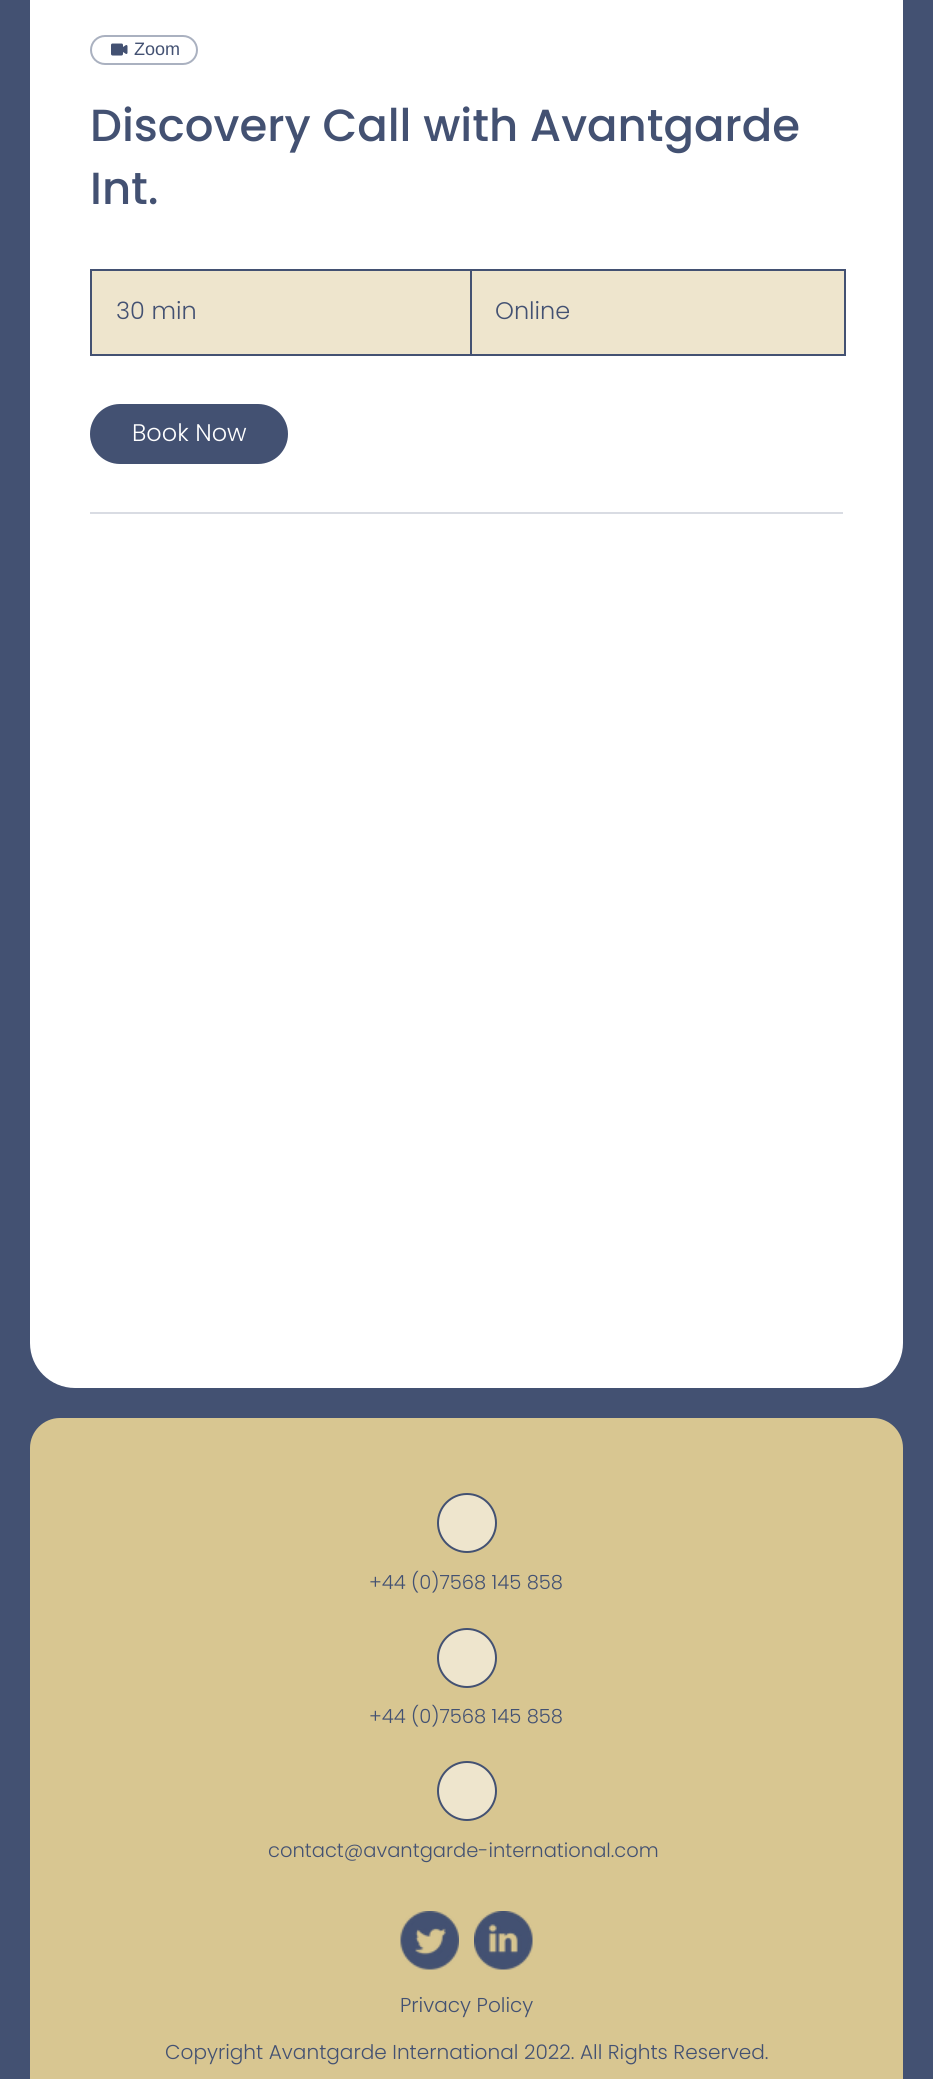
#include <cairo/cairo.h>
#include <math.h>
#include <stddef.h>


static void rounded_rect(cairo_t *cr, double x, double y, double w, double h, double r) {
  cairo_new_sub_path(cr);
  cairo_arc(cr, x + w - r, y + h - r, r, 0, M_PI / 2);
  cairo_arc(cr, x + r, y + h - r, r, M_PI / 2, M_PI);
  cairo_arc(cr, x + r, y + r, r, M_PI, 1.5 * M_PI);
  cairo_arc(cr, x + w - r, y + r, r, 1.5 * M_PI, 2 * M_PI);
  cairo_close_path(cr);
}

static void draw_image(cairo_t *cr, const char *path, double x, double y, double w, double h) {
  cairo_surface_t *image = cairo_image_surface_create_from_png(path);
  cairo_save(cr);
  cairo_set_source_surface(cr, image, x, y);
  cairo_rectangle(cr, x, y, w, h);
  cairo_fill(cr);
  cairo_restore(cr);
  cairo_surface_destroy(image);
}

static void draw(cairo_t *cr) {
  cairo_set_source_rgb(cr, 67 / 255.0, 81 / 255.0, 114 / 255.0);
  cairo_paint(cr);
  cairo_set_source_rgb(cr, 1, 1, 1);
  rounded_rect(cr, 30, -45, 873, 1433, 45);
  cairo_fill(cr);
  rounded_rect(cr, 91, 36, 106, 28, 14);
  cairo_set_source_rgb(cr, 170 / 255.0, 177 / 255.0, 192 / 255.0);
  cairo_stroke(cr);
  draw_image(cr, "images/1.png", 111, 43, 17, 13);
  cairo_set_source_rgb(cr, 238 / 255.0, 229 / 255.0, 205 / 255.0);
  cairo_rectangle(cr, 91, 270, 754, 85);
  cairo_fill_preserve(cr);
  cairo_set_source_rgb(cr, 67 / 255.0, 81 / 255.0, 114 / 255.0);
  cairo_stroke(cr);
  cairo_rectangle(cr, 470, 270, 2, 84);
  cairo_fill(cr);
  rounded_rect(cr, 91, 405, 196, 58, 29);
  cairo_fill_preserve(cr);
  cairo_stroke(cr);
  cairo_set_source_rgb(cr, 217 / 255.0, 220 / 255.0, 227 / 255.0);
  cairo_rectangle(cr, 90, 512, 753, 2);
  cairo_fill(cr);
  cairo_set_source_rgb(cr, 216 / 255.0, 198 / 255.0, 145 / 255.0);
  rounded_rect(cr, 30, 1418, 873, 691, 30);
  cairo_fill(cr);
  cairo_set_source_rgb(cr, 238 / 255.0, 229 / 255.0, 205 / 255.0);
  cairo_arc(cr, 467, 1523, 29, 0, 2 * M_PI);
  cairo_fill_preserve(cr);
  cairo_set_source_rgb(cr, 67 / 255.0, 81 / 255.0, 114 / 255.0);
  cairo_stroke(cr);
  cairo_set_source_rgb(cr, 238 / 255.0, 229 / 255.0, 205 / 255.0);
  cairo_arc(cr, 467, 1658, 29, 0, 2 * M_PI);
  cairo_fill_preserve(cr);
  cairo_set_source_rgb(cr, 67 / 255.0, 81 / 255.0, 114 / 255.0);
  cairo_stroke(cr);
  cairo_set_source_rgb(cr, 238 / 255.0, 229 / 255.0, 205 / 255.0);
  cairo_arc(cr, 467, 1791, 29, 0, 2 * M_PI);
  cairo_fill_preserve(cr);
  cairo_set_source_rgb(cr, 67 / 255.0, 81 / 255.0, 114 / 255.0);
  cairo_stroke(cr);
  draw_image(cr, "images/2.png", 400, 1911, 59, 59);
  draw_image(cr, "images/3.png", 474, 1911, 59, 59);
  cairo_select_font_face(cr, "Liberation Sans", CAIRO_FONT_SLANT_NORMAL, CAIRO_FONT_WEIGHT_NORMAL);
  cairo_set_font_size(cr, 18);
  cairo_move_to(cr, 134, 55);
  cairo_show_text(cr, "Zoom");
  cairo_select_font_face(cr, "Poppins Medium", CAIRO_FONT_SLANT_NORMAL, CAIRO_FONT_WEIGHT_NORMAL);
  cairo_set_font_size(cr, 45);
  cairo_move_to(cr, 90, 141);
  cairo_show_text(cr, "Discovery Call with Avantgarde");
  cairo_move_to(cr, 90, 204);
  cairo_show_text(cr, "Int.");
  cairo_select_font_face(cr, "Poppins Light", CAIRO_FONT_SLANT_NORMAL, CAIRO_FONT_WEIGHT_NORMAL);
  cairo_set_font_size(cr, 24);
  cairo_move_to(cr, 116, 319);
  cairo_show_text(cr, "30 min");
  cairo_move_to(cr, 495, 319);
  cairo_show_text(cr, "Online");
  cairo_set_source_rgb(cr, 1, 1, 1);
  cairo_move_to(cr, 132, 441);
  cairo_show_text(cr, "Book Now");
  cairo_set_font_size(cr, 19.5);
  cairo_set_source_rgb(cr, 67 / 255.0, 81 / 255.0, 114 / 255.0);
  cairo_move_to(cr, 369, 1589);
  cairo_show_text(cr, "+44 (0)7568 145 858");
  cairo_move_to(cr, 369, 1723);
  cairo_show_text(cr, "+44 (0)7568 145 858");
  cairo_move_to(cr, 268, 1857);
  cairo_show_text(cr, "contact@avantgarde-international.com");
  cairo_set_font_size(cr, 20.1);
  cairo_move_to(cr, 400, 2012);
  cairo_show_text(cr, "Privacy Policy");
  cairo_move_to(cr, 165, 2059);
  cairo_show_text(cr, "Copyright Avantgarde International 2022. All Rights Reserved.");
}

int main(void) {
  cairo_surface_t *surface = cairo_image_surface_create(CAIRO_FORMAT_RGB24, 933, 2079);
  cairo_t *cr = cairo_create(surface);
  cairo_font_options_t *options = cairo_font_options_create();
  cairo_font_options_set_hint_metrics(options, CAIRO_HINT_METRICS_OFF);
  cairo_font_options_set_hint_style(options, CAIRO_HINT_STYLE_NONE);
  cairo_set_font_options(cr, options);
  cairo_set_miter_limit(cr, 4);
  draw(cr);
  cairo_surface_write_to_png(surface, "out.png");
  cairo_font_options_destroy(options);
  cairo_destroy(cr);
  cairo_surface_destroy(surface);
  return 0;
}
